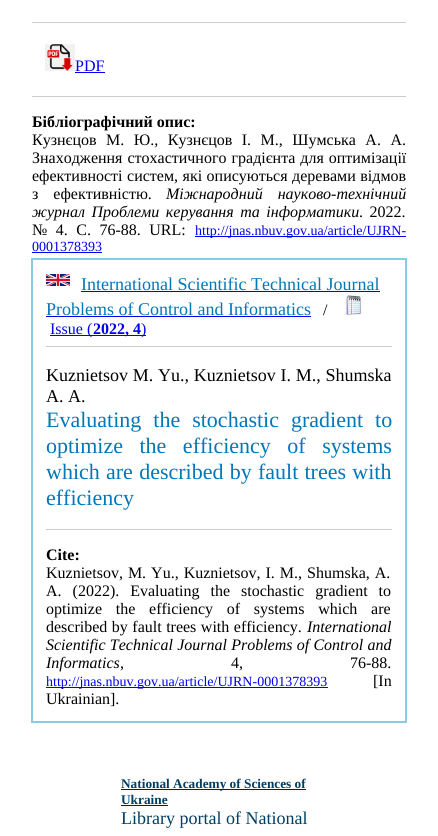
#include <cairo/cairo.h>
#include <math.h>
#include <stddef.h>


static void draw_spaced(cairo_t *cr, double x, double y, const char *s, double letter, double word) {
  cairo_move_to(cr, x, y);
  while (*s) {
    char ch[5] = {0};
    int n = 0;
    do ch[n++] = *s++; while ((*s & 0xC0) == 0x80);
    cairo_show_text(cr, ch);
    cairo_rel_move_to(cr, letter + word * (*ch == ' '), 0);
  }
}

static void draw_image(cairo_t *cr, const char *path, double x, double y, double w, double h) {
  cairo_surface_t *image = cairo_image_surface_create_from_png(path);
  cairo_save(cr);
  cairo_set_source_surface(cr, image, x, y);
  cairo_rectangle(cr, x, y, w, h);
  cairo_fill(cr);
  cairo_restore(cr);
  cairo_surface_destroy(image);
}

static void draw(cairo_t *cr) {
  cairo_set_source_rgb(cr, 1, 1, 1);
  cairo_paint(cr);
  cairo_set_source_rgb(cr, 204 / 255.0, 204 / 255.0, 204 / 255.0);
  cairo_rectangle(cr, 32, 22, 374, 1);
  cairo_fill(cr);
  draw_image(cr, "images/1.png", 45, 44, 30, 27);
  cairo_set_source_rgb(cr, 0, 0, 238 / 255.0);
  cairo_rectangle(cr, 75, 72, 30, 1);
  cairo_fill(cr);
  cairo_set_source_rgb(cr, 204 / 255.0, 204 / 255.0, 204 / 255.0);
  cairo_rectangle(cr, 32, 96, 374, 1);
  cairo_fill(cr);
  cairo_set_source_rgb(cr, 0, 0, 238 / 255.0);
  cairo_rectangle(cr, 195, 236, 211, 1);
  cairo_fill(cr);
  cairo_rectangle(cr, 32, 252, 70, 1);
  cairo_fill(cr);
  cairo_rectangle(cr, 32, 259, 374, 463);
  cairo_set_source_rgb(cr, 137 / 255.0, 202 / 255.0, 231 / 255.0);
  cairo_stroke(cr);
  draw_image(cr, "images/2.png", 46, 274, 24, 12);
  cairo_set_source_rgb(cr, 0, 0, 238 / 255.0);
  cairo_rectangle(cr, 81, 291, 299, 1);
  cairo_fill(cr);
  cairo_rectangle(cr, 46, 316, 265, 1);
  cairo_fill(cr);
  draw_image(cr, "images/3.png", 344, 295, 20, 20);
  cairo_rectangle(cr, 50, 335, 96, 1);
  cairo_fill(cr);
  cairo_set_source_rgb(cr, 204 / 255.0, 204 / 255.0, 204 / 255.0);
  cairo_rectangle(cr, 46, 346, 346, 1);
  cairo_fill(cr);
  cairo_rectangle(cr, 46, 529, 346, 1);
  cairo_fill(cr);
  cairo_set_source_rgb(cr, 0, 0, 238 / 255.0);
  cairo_rectangle(cr, 46, 687, 282, 1);
  cairo_fill(cr);
  cairo_rectangle(cr, 121, 789, 185, 1);
  cairo_fill(cr);
  cairo_rectangle(cr, 121, 805, 47, 1);
  cairo_fill(cr);
  cairo_select_font_face(cr, "Liberation Serif", CAIRO_FONT_SLANT_NORMAL, CAIRO_FONT_WEIGHT_NORMAL);
  cairo_set_font_size(cr, 16);
  cairo_move_to(cr, 75, 71);
  cairo_show_text(cr, "PDF");
  cairo_select_font_face(cr, "Liberation Serif", CAIRO_FONT_SLANT_NORMAL, CAIRO_FONT_WEIGHT_BOLD);
  cairo_set_source_rgb(cr, 0, 0, 0);
  cairo_move_to(cr, 32, 127);
  cairo_show_text(cr, "Бібліографічний опис:");
  cairo_select_font_face(cr, "Liberation Serif", CAIRO_FONT_SLANT_NORMAL, CAIRO_FONT_WEIGHT_NORMAL);
  draw_spaced(cr, 32, 145, "Кузнєцов М. Ю., Кузнєцов І. М., Шумська А. А.", 0, 5.5);
  draw_spaced(cr, 32, 163, "Знаходження стохастичного градієнта для оптимізації", 0, 1);
  draw_spaced(cr, 32, 181, "ефективності систем, які описуються деревами відмов", 0, 0.5);
  draw_spaced(cr, 32, 199, "з ефективністю.", 0, 11);
  cairo_select_font_face(cr, "Liberation Serif", CAIRO_FONT_SLANT_ITALIC, CAIRO_FONT_WEIGHT_NORMAL);
  draw_spaced(cr, 166, 199, "Міжнародний науково-технічний", 0, 11);
  draw_spaced(cr, 32, 217, "журнал Проблеми керування та інформатики", 0, 2.5);
  cairo_select_font_face(cr, "Liberation Serif", CAIRO_FONT_SLANT_NORMAL, CAIRO_FONT_WEIGHT_NORMAL);
  draw_spaced(cr, 359, 217, ". 2022.", 0, 2.5);
  draw_spaced(cr, 32, 235, "№ 4. С. 76-88. URL:", 0, 4.5);
  cairo_set_font_size(cr, 14);
  cairo_set_source_rgb(cr, 0, 0, 238 / 255.0);
  cairo_move_to(cr, 195, 235);
  cairo_show_text(cr, "http://jnas.nbuv.gov.ua/article/UJRN-");
  cairo_move_to(cr, 32, 251);
  cairo_show_text(cr, "0001378393");
  cairo_set_font_size(cr, 18);
  cairo_set_source_rgb(cr, 0, 119 / 255.0, 185 / 255.0);
  cairo_move_to(cr, 81, 290);
  cairo_show_text(cr, "International Scientific Technical Journal");
  cairo_move_to(cr, 46, 315);
  cairo_show_text(cr, "Problems of Control and Informatics");
  cairo_set_font_size(cr, 16);
  cairo_set_source_rgb(cr, 0, 0, 0);
  cairo_move_to(cr, 323, 315);
  cairo_show_text(cr, "/");
  cairo_set_source_rgb(cr, 0, 0, 238 / 255.0);
  cairo_move_to(cr, 50, 334);
  cairo_show_text(cr, "Issue (");
  cairo_select_font_face(cr, "Liberation Serif", CAIRO_FONT_SLANT_NORMAL, CAIRO_FONT_WEIGHT_BOLD);
  cairo_move_to(cr, 93, 334);
  cairo_show_text(cr, "2022, 4");
  cairo_select_font_face(cr, "Liberation Serif", CAIRO_FONT_SLANT_NORMAL, CAIRO_FONT_WEIGHT_NORMAL);
  cairo_move_to(cr, 141, 334);
  cairo_show_text(cr, ")");
  cairo_set_font_size(cr, 18);
  cairo_set_source_rgb(cr, 0, 0, 0);
  draw_spaced(cr, 46, 381, "Kuznietsov M. Yu., Kuznietsov I. M., Shumska", 0, 0.25);
  cairo_move_to(cr, 46, 402);
  cairo_show_text(cr, "A. A.");
  cairo_set_font_size(cr, 22);
  cairo_set_source_rgb(cr, 0, 119 / 255.0, 185 / 255.0);
  draw_spaced(cr, 46, 427, "Evaluating the stochastic gradient to", 0, 6.5);
  draw_spaced(cr, 46, 453, "optimize the efficiency of systems", 0, 11);
  draw_spaced(cr, 46, 479, "which are described by fault trees with", 0, 0.75);
  cairo_move_to(cr, 46, 505);
  cairo_show_text(cr, "efficiency");
  cairo_select_font_face(cr, "Liberation Serif", CAIRO_FONT_SLANT_NORMAL, CAIRO_FONT_WEIGHT_BOLD);
  cairo_set_font_size(cr, 16);
  cairo_set_source_rgb(cr, 0, 0, 0);
  cairo_move_to(cr, 46, 560);
  cairo_show_text(cr, "Cite:");
  cairo_select_font_face(cr, "Liberation Serif", CAIRO_FONT_SLANT_NORMAL, CAIRO_FONT_WEIGHT_NORMAL);
  draw_spaced(cr, 46, 578, "Kuznietsov, M. Yu., Kuznietsov, I. M., Shumska, A.", 0, 1);
  draw_spaced(cr, 46, 596, "A. (2022). Evaluating the stochastic gradient to", 0, 7);
  draw_spaced(cr, 46, 614, "optimize the efficiency of systems which are", 0, 9.75);
  draw_spaced(cr, 46, 632, "described by fault trees with efficiency.", 0, 0.5);
  cairo_select_font_face(cr, "Liberation Serif", CAIRO_FONT_SLANT_ITALIC, CAIRO_FONT_WEIGHT_NORMAL);
  cairo_move_to(cr, 307, 632);
  cairo_show_text(cr, "International");
  draw_spaced(cr, 46, 650, "Scientific Technical Journal Problems of Control and", 0, 0.25);
  cairo_move_to(cr, 46, 668);
  cairo_show_text(cr, "Informatics");
  cairo_select_font_face(cr, "Liberation Serif", CAIRO_FONT_SLANT_NORMAL, CAIRO_FONT_WEIGHT_NORMAL);
  draw_spaced(cr, 120, 668, ", 4, 76-88.", 0, 103);
  cairo_set_font_size(cr, 14);
  cairo_set_source_rgb(cr, 0, 0, 238 / 255.0);
  cairo_move_to(cr, 46, 686);
  cairo_show_text(cr, "http://jnas.nbuv.gov.ua/article/UJRN-0001378393");
  cairo_set_font_size(cr, 16);
  cairo_set_source_rgb(cr, 0, 0, 0);
  cairo_move_to(cr, 373, 686);
  cairo_show_text(cr, "[In");
  cairo_move_to(cr, 46, 704);
  cairo_show_text(cr, "Ukrainian].");
  cairo_select_font_face(cr, "Liberation Serif", CAIRO_FONT_SLANT_NORMAL, CAIRO_FONT_WEIGHT_BOLD);
  cairo_set_font_size(cr, 13.3);
  cairo_set_source_rgb(cr, 0, 62 / 255.0, 97 / 255.0);
  cairo_move_to(cr, 121, 788);
  cairo_show_text(cr, "National Academy of Sciences of");
  cairo_move_to(cr, 121, 804);
  cairo_show_text(cr, "Ukraine");
  cairo_select_font_face(cr, "Liberation Serif", CAIRO_FONT_SLANT_NORMAL, CAIRO_FONT_WEIGHT_NORMAL);
  cairo_set_font_size(cr, 18);
  cairo_move_to(cr, 121, 824);
  cairo_show_text(cr, "Library portal of National");
}

int main(void) {
  cairo_surface_t *surface = cairo_image_surface_create(CAIRO_FORMAT_RGB24, 438, 836);
  cairo_t *cr = cairo_create(surface);
  cairo_font_options_t *options = cairo_font_options_create();
  cairo_font_options_set_hint_metrics(options, CAIRO_HINT_METRICS_OFF);
  cairo_font_options_set_hint_style(options, CAIRO_HINT_STYLE_NONE);
  cairo_set_font_options(cr, options);
  cairo_set_miter_limit(cr, 4);
  draw(cr);
  cairo_surface_write_to_png(surface, "out.png");
  cairo_font_options_destroy(options);
  cairo_destroy(cr);
  cairo_surface_destroy(surface);
  return 0;
}
